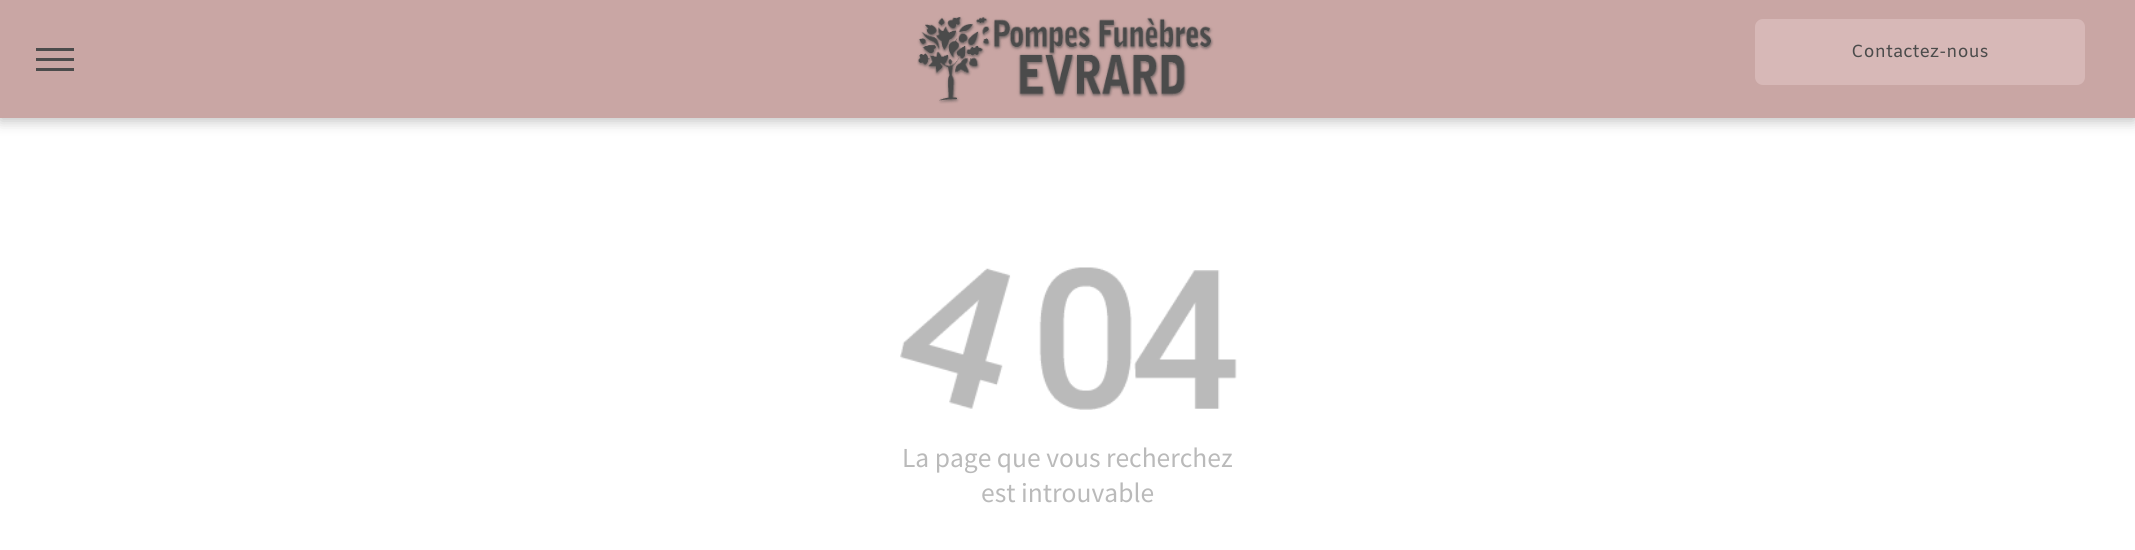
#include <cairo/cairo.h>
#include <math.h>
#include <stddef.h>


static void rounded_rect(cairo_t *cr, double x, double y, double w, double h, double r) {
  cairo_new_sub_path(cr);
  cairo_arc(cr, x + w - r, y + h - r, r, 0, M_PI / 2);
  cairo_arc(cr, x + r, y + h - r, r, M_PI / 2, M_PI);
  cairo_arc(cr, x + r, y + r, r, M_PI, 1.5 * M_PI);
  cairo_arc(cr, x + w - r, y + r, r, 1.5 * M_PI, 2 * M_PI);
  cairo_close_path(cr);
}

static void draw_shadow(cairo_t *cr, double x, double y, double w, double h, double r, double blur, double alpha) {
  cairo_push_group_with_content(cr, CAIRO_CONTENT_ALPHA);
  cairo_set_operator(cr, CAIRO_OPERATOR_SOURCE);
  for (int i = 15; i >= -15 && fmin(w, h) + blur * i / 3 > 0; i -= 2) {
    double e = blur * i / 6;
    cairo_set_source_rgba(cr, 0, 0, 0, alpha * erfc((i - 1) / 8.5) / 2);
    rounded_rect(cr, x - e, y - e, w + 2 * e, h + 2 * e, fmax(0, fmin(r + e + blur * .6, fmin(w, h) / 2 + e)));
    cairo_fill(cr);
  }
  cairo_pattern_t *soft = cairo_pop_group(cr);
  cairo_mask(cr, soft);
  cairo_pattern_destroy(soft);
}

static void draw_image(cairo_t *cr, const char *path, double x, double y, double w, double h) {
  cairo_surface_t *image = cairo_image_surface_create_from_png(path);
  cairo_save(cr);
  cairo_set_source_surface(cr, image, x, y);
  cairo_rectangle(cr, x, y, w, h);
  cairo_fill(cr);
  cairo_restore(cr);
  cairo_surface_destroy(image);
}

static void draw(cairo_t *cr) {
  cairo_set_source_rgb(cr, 1, 1, 1);
  cairo_paint(cr);
  cairo_set_source_rgb(cr, 0, 0, 0);
  draw_shadow(cr, 0, 4, 2135, 117, 0, 7, 0.25);
  cairo_set_source_rgb(cr, 201 / 255.0, 166 / 255.0, 164 / 255.0);
  cairo_rectangle(cr, 0, 0, 2135, 118);
  cairo_fill(cr);
  cairo_set_source_rgb(cr, 75 / 255.0, 75 / 255.0, 75 / 255.0);
  cairo_rectangle(cr, 36, 48, 38, 3);
  cairo_fill(cr);
  cairo_rectangle(cr, 36, 58, 38, 3);
  cairo_fill(cr);
  cairo_rectangle(cr, 36, 68, 38, 3);
  cairo_fill(cr);
  draw_image(cr, "images/1.png", 917, 16, 297, 88);
  cairo_set_source_rgb(cr, 215 / 255.0, 184 / 255.0, 183 / 255.0);
  rounded_rect(cr, 1755, 19, 330, 66, 8);
  cairo_fill(cr);
  draw_image(cr, "images/2.png", 900, 267, 337, 143);
  cairo_select_font_face(cr, "Amiko", CAIRO_FONT_SLANT_NORMAL, CAIRO_FONT_WEIGHT_NORMAL);
  cairo_set_font_size(cr, 17.5);
  cairo_set_source_rgb(cr, 75 / 255.0, 75 / 255.0, 75 / 255.0);
  cairo_move_to(cr, 1851, 57);
  cairo_show_text(cr, "Contactez-nous");
  cairo_select_font_face(cr, "Source Sans Pro", CAIRO_FONT_SLANT_NORMAL, CAIRO_FONT_WEIGHT_NORMAL);
  cairo_set_font_size(cr, 27.5);
  cairo_set_source_rgb(cr, 186 / 255.0, 186 / 255.0, 186 / 255.0);
  cairo_move_to(cr, 902, 467);
  cairo_show_text(cr, "La page que vous recherchez");
  cairo_move_to(cr, 981, 502);
  cairo_show_text(cr, "est introuvable");
}

int main(void) {
  cairo_surface_t *surface = cairo_image_surface_create(CAIRO_FORMAT_RGB24, 2135, 550);
  cairo_t *cr = cairo_create(surface);
  cairo_font_options_t *options = cairo_font_options_create();
  cairo_font_options_set_hint_metrics(options, CAIRO_HINT_METRICS_OFF);
  cairo_font_options_set_hint_style(options, CAIRO_HINT_STYLE_NONE);
  cairo_set_font_options(cr, options);
  cairo_set_miter_limit(cr, 4);
  draw(cr);
  cairo_surface_write_to_png(surface, "out.png");
  cairo_font_options_destroy(options);
  cairo_destroy(cr);
  cairo_surface_destroy(surface);
  return 0;
}
